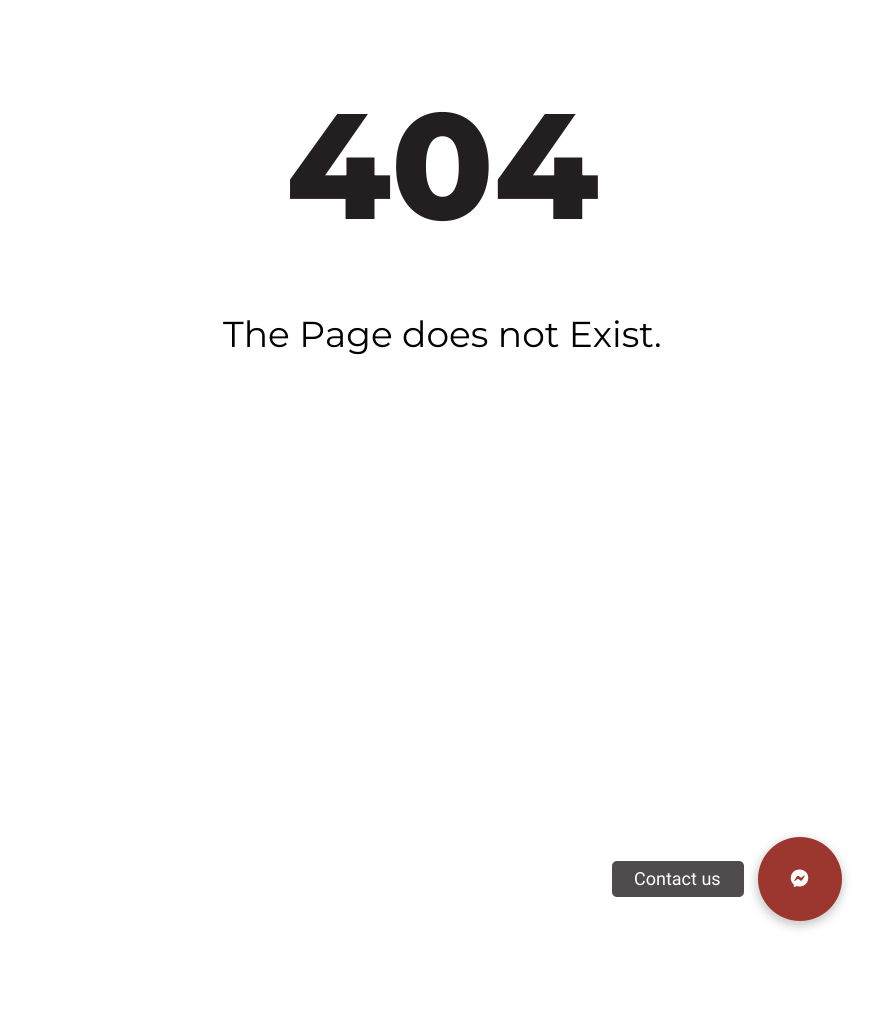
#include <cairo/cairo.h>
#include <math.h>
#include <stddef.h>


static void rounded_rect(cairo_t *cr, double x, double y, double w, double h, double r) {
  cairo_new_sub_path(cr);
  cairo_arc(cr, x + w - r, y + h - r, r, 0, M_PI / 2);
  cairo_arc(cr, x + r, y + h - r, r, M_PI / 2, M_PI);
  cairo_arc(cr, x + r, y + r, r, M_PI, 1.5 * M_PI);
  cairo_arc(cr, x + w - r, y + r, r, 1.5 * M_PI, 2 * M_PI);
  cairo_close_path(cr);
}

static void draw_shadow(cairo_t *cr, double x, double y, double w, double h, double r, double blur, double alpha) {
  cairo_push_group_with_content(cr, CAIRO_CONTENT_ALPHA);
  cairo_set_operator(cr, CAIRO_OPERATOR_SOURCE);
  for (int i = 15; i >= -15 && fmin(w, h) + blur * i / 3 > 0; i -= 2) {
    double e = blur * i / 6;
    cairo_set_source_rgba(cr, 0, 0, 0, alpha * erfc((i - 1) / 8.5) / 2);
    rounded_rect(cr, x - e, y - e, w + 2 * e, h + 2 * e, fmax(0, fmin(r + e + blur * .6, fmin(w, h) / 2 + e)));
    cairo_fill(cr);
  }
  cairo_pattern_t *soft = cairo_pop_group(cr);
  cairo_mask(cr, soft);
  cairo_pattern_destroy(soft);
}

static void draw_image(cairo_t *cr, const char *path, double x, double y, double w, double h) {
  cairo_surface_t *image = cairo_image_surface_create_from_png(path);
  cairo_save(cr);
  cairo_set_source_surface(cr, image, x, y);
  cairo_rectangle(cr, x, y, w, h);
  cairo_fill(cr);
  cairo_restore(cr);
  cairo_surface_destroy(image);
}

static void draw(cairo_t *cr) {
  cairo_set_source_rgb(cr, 1, 1, 1);
  cairo_paint(cr);
  cairo_set_source_rgb(cr, 0, 0, 0);
  draw_shadow(cr, 756, 839, 87, 87, 43.5, 4.5, 0.2);
  cairo_set_source_rgb(cr, 155 / 255.0, 55 / 255.0, 47 / 255.0);
  cairo_arc(cr, 800, 879, 42, 0, 2 * M_PI);
  cairo_fill(cr);
  cairo_set_source_rgb(cr, 78 / 255.0, 76 / 255.0, 76 / 255.0);
  rounded_rect(cr, 612, 861, 132, 36, 5);
  cairo_fill(cr);
  draw_image(cr, "images/1.png", 790, 869, 19, 18);
  cairo_select_font_face(cr, "Montserrat Thin", CAIRO_FONT_SLANT_NORMAL, CAIRO_FONT_WEIGHT_NORMAL);
  cairo_set_font_size(cr, 150);
  cairo_set_source_rgb(cr, 35 / 255.0, 31 / 255.0, 32 / 255.0);
  cairo_move_to(cr, 286, 219);
  cairo_show_text(cr, "404");
  cairo_select_font_face(cr, "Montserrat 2 Thin", CAIRO_FONT_SLANT_NORMAL, CAIRO_FONT_WEIGHT_NORMAL);
  cairo_set_font_size(cr, 36);
  cairo_set_source_rgb(cr, 0, 0, 0);
  cairo_move_to(cr, 223, 347);
  cairo_show_text(cr, "The Page does not Exist.");
  cairo_select_font_face(cr, "Roboto", CAIRO_FONT_SLANT_NORMAL, CAIRO_FONT_WEIGHT_NORMAL);
  cairo_set_font_size(cr, 18);
  cairo_set_source_rgb(cr, 1, 1, 1);
  cairo_move_to(cr, 634, 885);
  cairo_show_text(cr, "Contact us");
}

int main(void) {
  cairo_surface_t *surface = cairo_image_surface_create(CAIRO_FORMAT_RGB24, 884, 1023);
  cairo_t *cr = cairo_create(surface);
  cairo_font_options_t *options = cairo_font_options_create();
  cairo_font_options_set_hint_metrics(options, CAIRO_HINT_METRICS_OFF);
  cairo_font_options_set_hint_style(options, CAIRO_HINT_STYLE_NONE);
  cairo_set_font_options(cr, options);
  cairo_set_miter_limit(cr, 4);
  draw(cr);
  cairo_surface_write_to_png(surface, "out.png");
  cairo_font_options_destroy(options);
  cairo_destroy(cr);
  cairo_surface_destroy(surface);
  return 0;
}
